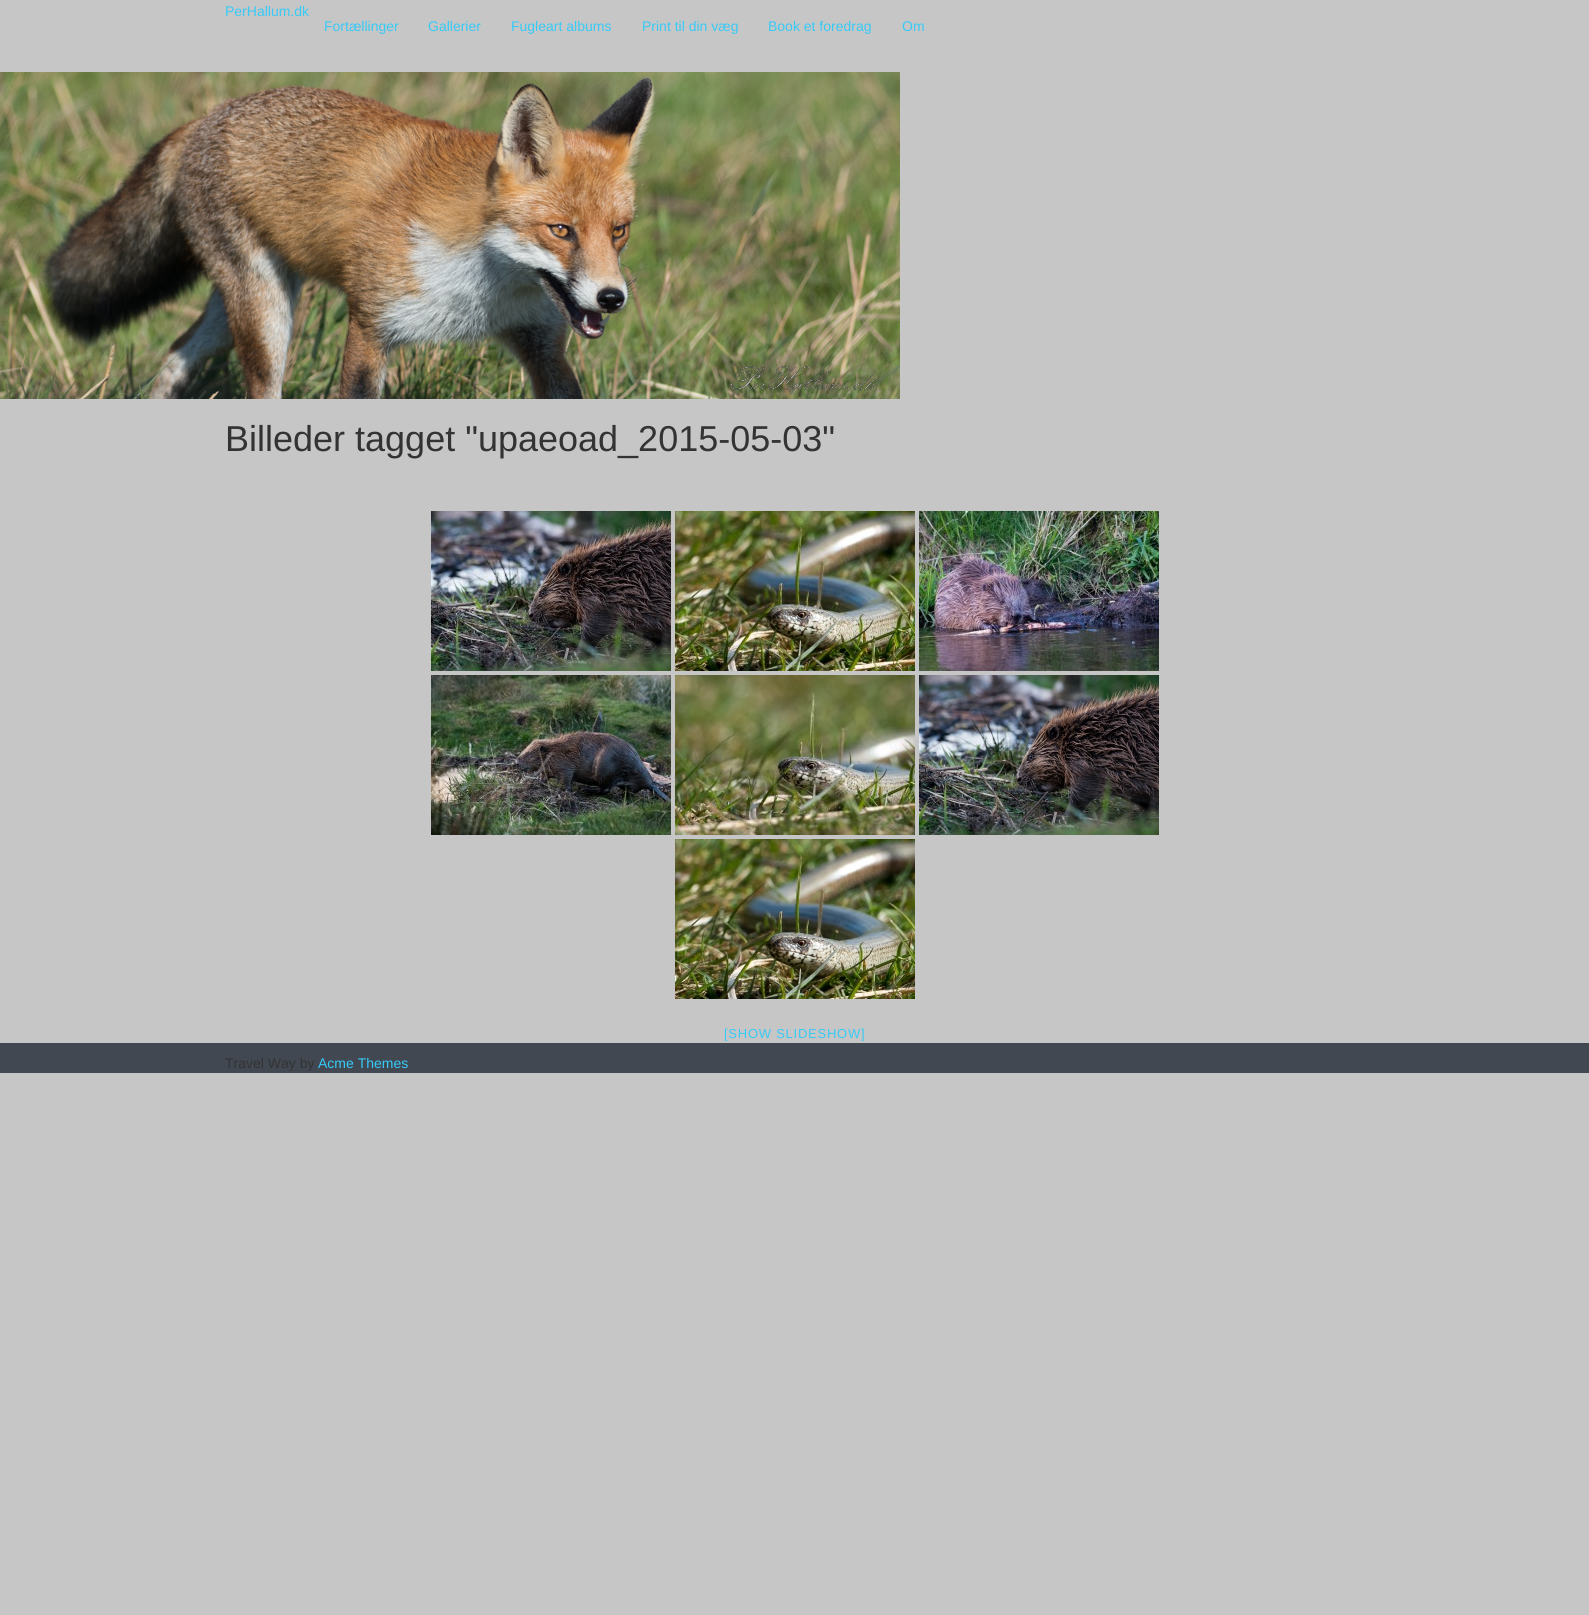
#include <cairo/cairo.h>
#include <math.h>
#include <stddef.h>


static void draw_spaced(cairo_t *cr, double x, double y, const char *s, double letter, double word) {
  cairo_move_to(cr, x, y);
  while (*s) {
    char ch[5] = {0};
    int n = 0;
    do ch[n++] = *s++; while ((*s & 0xC0) == 0x80);
    cairo_show_text(cr, ch);
    cairo_rel_move_to(cr, letter + word * (*ch == ' '), 0);
  }
}

static void draw_image(cairo_t *cr, const char *path, double x, double y, double w, double h) {
  cairo_surface_t *image = cairo_image_surface_create_from_png(path);
  cairo_save(cr);
  cairo_set_source_surface(cr, image, x, y);
  cairo_rectangle(cr, x, y, w, h);
  cairo_fill(cr);
  cairo_restore(cr);
  cairo_surface_destroy(image);
}

static void draw(cairo_t *cr) {
  cairo_set_source_rgb(cr, 198 / 255.0, 198 / 255.0, 198 / 255.0);
  cairo_paint(cr);
  draw_image(cr, "images/1.png", 0, 72, 900, 327);
  draw_image(cr, "images/2.png", 431, 511, 240, 160);
  draw_image(cr, "images/3.png", 675, 511, 240, 160);
  draw_image(cr, "images/4.png", 919, 511, 240, 160);
  draw_image(cr, "images/5.png", 431, 675, 240, 160);
  draw_image(cr, "images/6.png", 675, 675, 240, 160);
  draw_image(cr, "images/7.png", 919, 675, 240, 160);
  draw_image(cr, "images/8.png", 675, 839, 240, 160);
  cairo_set_source_rgb(cr, 65 / 255.0, 72 / 255.0, 82 / 255.0);
  cairo_rectangle(cr, 0, 1043, 1589, 30);
  cairo_fill(cr);
  cairo_select_font_face(cr, "Liberation Sans", CAIRO_FONT_SLANT_NORMAL, CAIRO_FONT_WEIGHT_NORMAL);
  cairo_set_font_size(cr, 14);
  cairo_set_source_rgb(cr, 54 / 255.0, 202 / 255.0, 247 / 255.0);
  cairo_move_to(cr, 225, 16);
  cairo_show_text(cr, "PerHallum.dk");
  cairo_move_to(cr, 324, 31);
  cairo_show_text(cr, "Fortællinger");
  cairo_move_to(cr, 428, 31);
  cairo_show_text(cr, "Gallerier");
  cairo_move_to(cr, 511, 31);
  cairo_show_text(cr, "Fugleart albums");
  cairo_move_to(cr, 642, 31);
  cairo_show_text(cr, "Print til din væg");
  cairo_move_to(cr, 768, 31);
  cairo_show_text(cr, "Book et foredrag");
  cairo_move_to(cr, 902, 31);
  cairo_show_text(cr, "Om");
  cairo_set_font_size(cr, 36);
  cairo_set_source_rgb(cr, 51 / 255.0, 51 / 255.0, 51 / 255.0);
  cairo_move_to(cr, 225, 451);
  cairo_show_text(cr, "Billeder tagget \"upaeoad_2015-05-03\"");
  cairo_set_font_size(cr, 13);
  cairo_set_source_rgb(cr, 54 / 255.0, 202 / 255.0, 247 / 255.0);
  draw_spaced(cr, 724, 1038, "[SHOW SLIDESHOW]", 0.75, 0);
  cairo_set_font_size(cr, 14);
  cairo_set_source_rgb(cr, 51 / 255.0, 51 / 255.0, 51 / 255.0);
  cairo_move_to(cr, 225, 1068);
  cairo_show_text(cr, "Travel Way by");
  cairo_set_source_rgb(cr, 54 / 255.0, 202 / 255.0, 247 / 255.0);
  cairo_move_to(cr, 318, 1068);
  cairo_show_text(cr, "Acme Themes");
}

int main(void) {
  cairo_surface_t *surface = cairo_image_surface_create(CAIRO_FORMAT_RGB24, 1589, 1615);
  cairo_t *cr = cairo_create(surface);
  cairo_font_options_t *options = cairo_font_options_create();
  cairo_font_options_set_hint_metrics(options, CAIRO_HINT_METRICS_OFF);
  cairo_font_options_set_hint_style(options, CAIRO_HINT_STYLE_NONE);
  cairo_set_font_options(cr, options);
  cairo_set_miter_limit(cr, 4);
  draw(cr);
  cairo_surface_write_to_png(surface, "out.png");
  cairo_font_options_destroy(options);
  cairo_destroy(cr);
  cairo_surface_destroy(surface);
  return 0;
}
